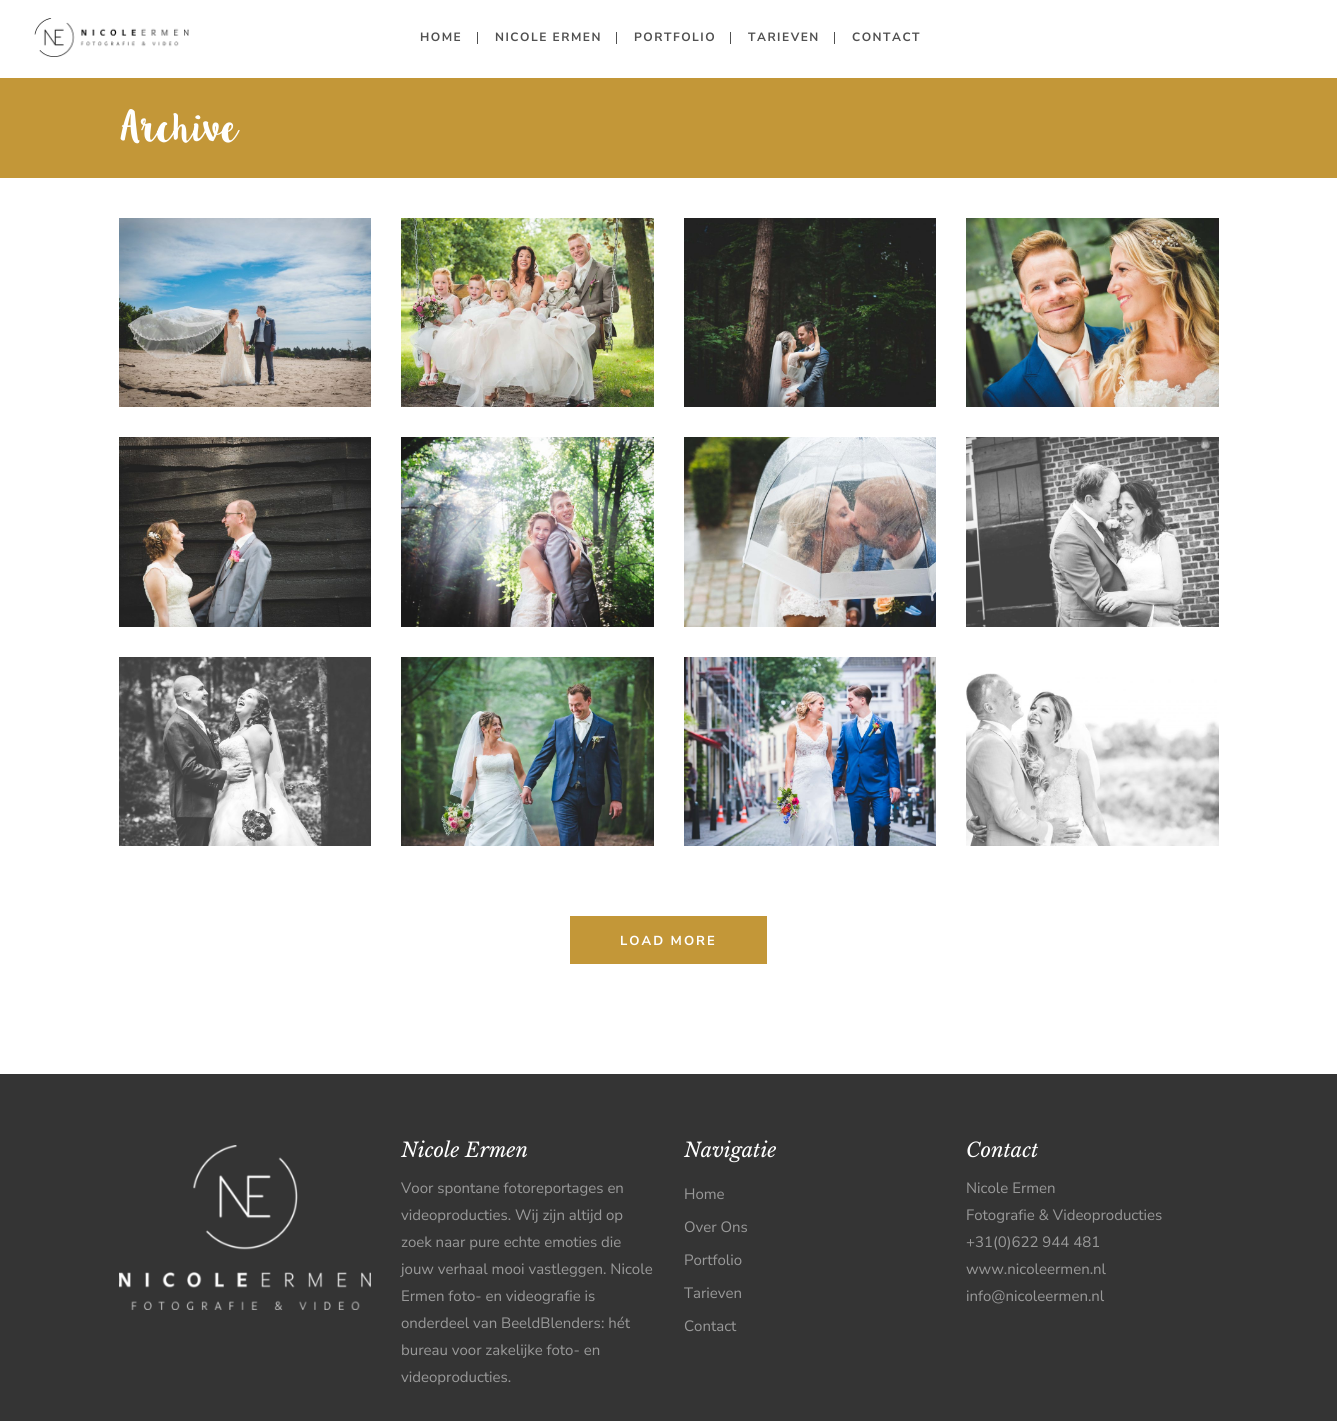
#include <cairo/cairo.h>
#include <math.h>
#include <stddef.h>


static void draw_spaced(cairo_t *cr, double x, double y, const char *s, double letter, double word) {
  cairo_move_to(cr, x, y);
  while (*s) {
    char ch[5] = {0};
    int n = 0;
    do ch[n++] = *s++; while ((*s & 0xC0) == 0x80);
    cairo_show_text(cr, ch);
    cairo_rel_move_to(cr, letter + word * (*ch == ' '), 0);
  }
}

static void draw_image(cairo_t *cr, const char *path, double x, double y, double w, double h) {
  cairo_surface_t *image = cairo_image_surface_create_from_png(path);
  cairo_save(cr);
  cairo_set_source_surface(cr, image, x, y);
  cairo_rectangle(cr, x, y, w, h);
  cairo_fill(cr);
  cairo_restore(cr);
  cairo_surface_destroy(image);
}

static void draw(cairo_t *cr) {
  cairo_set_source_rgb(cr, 1, 1, 1);
  cairo_paint(cr);
  draw_image(cr, "images/1.png", 34, 18, 155, 39);
  cairo_set_source_rgb(cr, 80 / 255.0, 80 / 255.0, 80 / 255.0);
  cairo_rectangle(cr, 477, 32, 1, 12);
  cairo_fill(cr);
  cairo_rectangle(cr, 616, 32, 1, 12);
  cairo_fill(cr);
  cairo_rectangle(cr, 730, 32, 1, 12);
  cairo_fill(cr);
  cairo_rectangle(cr, 834, 32, 1, 12);
  cairo_fill(cr);
  cairo_set_source_rgb(cr, 195 / 255.0, 151 / 255.0, 56 / 255.0);
  cairo_rectangle(cr, 0, 78, 1337, 100);
  cairo_fill(cr);
  draw_image(cr, "images/2.png", 119, 218, 252, 189);
  draw_image(cr, "images/3.png", 401, 218, 253, 189);
  draw_image(cr, "images/4.png", 684, 218, 252, 189);
  draw_image(cr, "images/5.png", 966, 218, 253, 189);
  draw_image(cr, "images/6.png", 119, 437, 252, 190);
  draw_image(cr, "images/7.png", 401, 437, 253, 190);
  draw_image(cr, "images/8.png", 684, 437, 252, 190);
  draw_image(cr, "images/9.png", 966, 437, 253, 190);
  draw_image(cr, "images/10.png", 119, 657, 252, 189);
  draw_image(cr, "images/11.png", 401, 657, 253, 189);
  draw_image(cr, "images/12.png", 684, 657, 252, 189);
  draw_image(cr, "images/13.png", 966, 673, 253, 173);
  cairo_rectangle(cr, 570, 916, 197, 48);
  cairo_fill(cr);
  cairo_set_source_rgb(cr, 52 / 255.0, 52 / 255.0, 52 / 255.0);
  cairo_rectangle(cr, 0, 1074, 1337, 347);
  cairo_fill(cr);
  draw_image(cr, "images/14.png", 119, 1145, 252, 165);
  cairo_select_font_face(cr, "Nunito Sans", CAIRO_FONT_SLANT_NORMAL, CAIRO_FONT_WEIGHT_BOLD);
  cairo_set_font_size(cr, 12);
  cairo_set_source_rgb(cr, 80 / 255.0, 80 / 255.0, 80 / 255.0);
  draw_spaced(cr, 420, 41, "HOME", 1.5, 0);
  draw_spaced(cr, 495, 41, "NICOLE ERMEN", 1.5, 0);
  draw_spaced(cr, 634, 41, "PORTFOLIO", 1.5, 0);
  draw_spaced(cr, 748, 41, "TARIEVEN", 1.5, 0);
  draw_spaced(cr, 852, 41, "CONTACT", 1.5, 0);
  cairo_select_font_face(cr, "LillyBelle", CAIRO_FONT_SLANT_NORMAL, CAIRO_FONT_WEIGHT_NORMAL);
  cairo_set_font_size(cr, 35);
  cairo_set_source_rgb(cr, 1, 1, 1);
  cairo_move_to(cr, 119, 140);
  cairo_show_text(cr, "Archive");
  cairo_select_font_face(cr, "Nunito Sans", CAIRO_FONT_SLANT_NORMAL, CAIRO_FONT_WEIGHT_BOLD);
  cairo_set_font_size(cr, 13);
  draw_spaced(cr, 620, 945, "LOAD MORE", 2, 0);
  cairo_select_font_face(cr, "Libre Baskerville", CAIRO_FONT_SLANT_ITALIC, CAIRO_FONT_WEIGHT_NORMAL);
  cairo_set_font_size(cr, 20);
  cairo_move_to(cr, 401, 1157);
  cairo_show_text(cr, "Nicole Ermen");
  cairo_select_font_face(cr, "Nunito Sans", CAIRO_FONT_SLANT_NORMAL, CAIRO_FONT_WEIGHT_NORMAL);
  cairo_set_font_size(cr, 15);
  cairo_set_source_rgb(cr, 153 / 255.0, 153 / 255.0, 153 / 255.0);
  cairo_move_to(cr, 401, 1193);
  cairo_show_text(cr, "Voor spontane fotoreportages en");
  cairo_move_to(cr, 401, 1220);
  cairo_show_text(cr, "videoproducties. Wij zijn altijd op");
  cairo_move_to(cr, 401, 1247);
  cairo_show_text(cr, "zoek naar pure echte emoties die");
  cairo_move_to(cr, 401, 1274);
  cairo_show_text(cr, "jouw verhaal mooi vastleggen. Nicole");
  cairo_move_to(cr, 401, 1301);
  cairo_show_text(cr, "Ermen foto- en videografie is");
  cairo_move_to(cr, 401, 1328);
  cairo_show_text(cr, "onderdeel van");
  cairo_move_to(cr, 501, 1328);
  cairo_show_text(cr, "BeeldBlenders");
  cairo_move_to(cr, 601, 1328);
  cairo_show_text(cr, ": hét");
  cairo_move_to(cr, 401, 1355);
  cairo_show_text(cr, "bureau voor zakelijke foto- en");
  cairo_move_to(cr, 401, 1382);
  cairo_show_text(cr, "videoproducties.");
  cairo_select_font_face(cr, "Libre Baskerville", CAIRO_FONT_SLANT_ITALIC, CAIRO_FONT_WEIGHT_NORMAL);
  cairo_set_font_size(cr, 20);
  cairo_set_source_rgb(cr, 1, 1, 1);
  cairo_move_to(cr, 684, 1157);
  cairo_show_text(cr, "Navigatie");
  cairo_select_font_face(cr, "Nunito Sans", CAIRO_FONT_SLANT_NORMAL, CAIRO_FONT_WEIGHT_NORMAL);
  cairo_set_font_size(cr, 15);
  cairo_set_source_rgb(cr, 153 / 255.0, 153 / 255.0, 153 / 255.0);
  cairo_move_to(cr, 684, 1199);
  cairo_show_text(cr, "Home");
  cairo_move_to(cr, 684, 1232);
  cairo_show_text(cr, "Over Ons");
  cairo_move_to(cr, 684, 1265);
  cairo_show_text(cr, "Portfolio");
  cairo_move_to(cr, 684, 1298);
  cairo_show_text(cr, "Tarieven");
  cairo_move_to(cr, 684, 1331);
  cairo_show_text(cr, "Contact");
  cairo_select_font_face(cr, "Libre Baskerville", CAIRO_FONT_SLANT_ITALIC, CAIRO_FONT_WEIGHT_NORMAL);
  cairo_set_font_size(cr, 20);
  cairo_set_source_rgb(cr, 1, 1, 1);
  cairo_move_to(cr, 966, 1157);
  cairo_show_text(cr, "Contact");
  cairo_select_font_face(cr, "Nunito Sans", CAIRO_FONT_SLANT_NORMAL, CAIRO_FONT_WEIGHT_NORMAL);
  cairo_set_font_size(cr, 15);
  cairo_set_source_rgb(cr, 153 / 255.0, 153 / 255.0, 153 / 255.0);
  cairo_move_to(cr, 966, 1193);
  cairo_show_text(cr, "Nicole Ermen");
  cairo_move_to(cr, 966, 1220);
  cairo_show_text(cr, "Fotografie & Videoproducties");
  cairo_move_to(cr, 966, 1247);
  cairo_show_text(cr, "+31(0)622 944 481");
  cairo_move_to(cr, 966, 1274);
  cairo_show_text(cr, "www.nicoleermen.nl");
  cairo_move_to(cr, 966, 1301);
  cairo_show_text(cr, "info@nicoleermen.nl");
}

int main(void) {
  cairo_surface_t *surface = cairo_image_surface_create(CAIRO_FORMAT_RGB24, 1337, 1421);
  cairo_t *cr = cairo_create(surface);
  cairo_font_options_t *options = cairo_font_options_create();
  cairo_font_options_set_hint_metrics(options, CAIRO_HINT_METRICS_OFF);
  cairo_font_options_set_hint_style(options, CAIRO_HINT_STYLE_NONE);
  cairo_set_font_options(cr, options);
  cairo_set_miter_limit(cr, 4);
  draw(cr);
  cairo_surface_write_to_png(surface, "out.png");
  cairo_font_options_destroy(options);
  cairo_destroy(cr);
  cairo_surface_destroy(surface);
  return 0;
}
